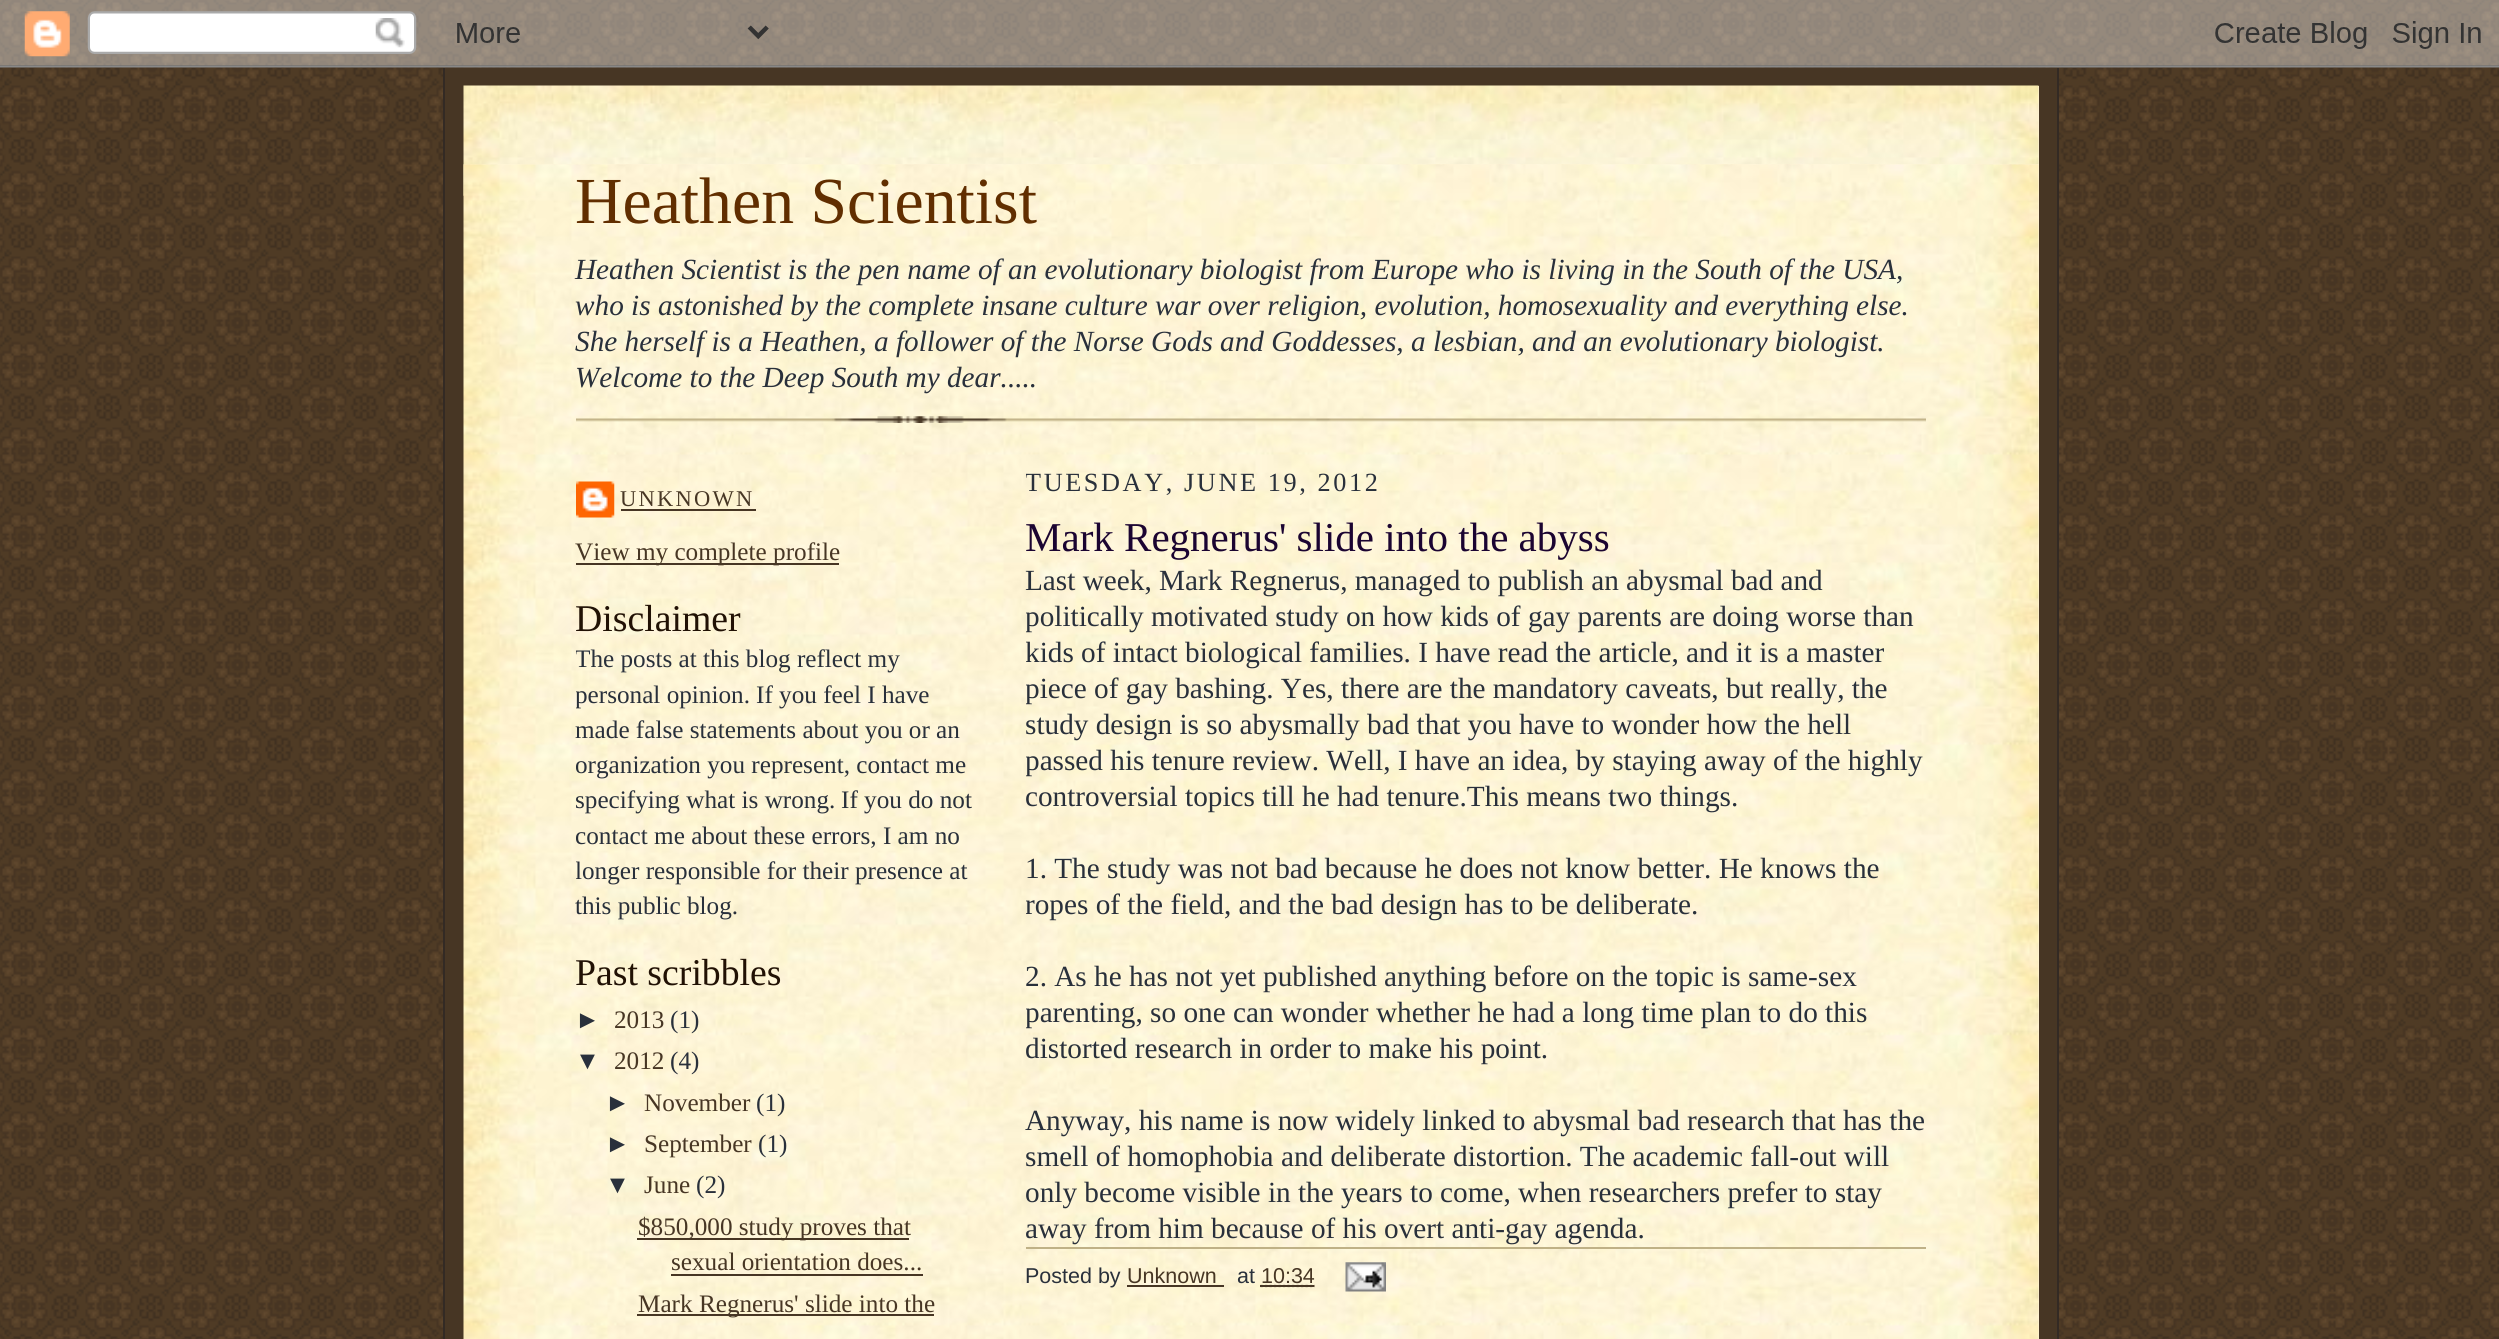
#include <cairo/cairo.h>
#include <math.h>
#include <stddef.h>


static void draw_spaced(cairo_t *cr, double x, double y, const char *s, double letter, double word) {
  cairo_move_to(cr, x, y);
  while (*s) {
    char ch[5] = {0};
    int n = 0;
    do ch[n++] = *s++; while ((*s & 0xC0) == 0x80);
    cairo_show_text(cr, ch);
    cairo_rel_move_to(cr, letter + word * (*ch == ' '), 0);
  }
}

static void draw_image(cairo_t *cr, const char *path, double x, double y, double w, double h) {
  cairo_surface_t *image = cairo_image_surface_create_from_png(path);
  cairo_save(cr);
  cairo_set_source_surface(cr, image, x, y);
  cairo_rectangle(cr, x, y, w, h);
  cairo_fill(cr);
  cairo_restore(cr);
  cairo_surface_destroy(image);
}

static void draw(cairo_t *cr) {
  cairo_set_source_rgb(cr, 1, 1, 1);
  cairo_paint(cr);
  draw_image(cr, "images/1.png", 0, 0, 2499, 1339);
  draw_image(cr, "images/2.png", 0, 0, 2499, 68);
  cairo_set_source_rgb(cr, 71 / 255.0, 54 / 255.0, 36 / 255.0);
  cairo_rectangle(cr, 445, 68, 1612, 1271);
  cairo_fill(cr);
  cairo_set_source_rgb(cr, 51 / 255.0, 42 / 255.0, 36 / 255.0);
  cairo_rectangle(cr, 2057, 68, 2, 1271);
  cairo_fill(cr);
  cairo_rectangle(cr, 443, 68, 2, 1271);
  cairo_fill(cr);
  cairo_set_source_rgb(cr, 1, 243 / 255.0, 219 / 255.0);
  cairo_rectangle(cr, 2038, 86, 1, 78);
  cairo_fill(cr);
  draw_image(cr, "images/3.png", 463, 85, 1576, 111);
  cairo_rectangle(cr, 464, 164, 1575, 1175);
  cairo_fill(cr);
  draw_image(cr, "images/4.png", 463, 164, 1576, 1175);
  draw_image(cr, "images/5.png", 576, 416, 1350, 7);
  draw_image(cr, "images/6.png", 576, 481, 39, 37);
  cairo_set_source_rgb(cr, 71 / 255.0, 54 / 255.0, 36 / 255.0);
  cairo_rectangle(cr, 621, 509, 135, 2);
  cairo_fill(cr);
  cairo_rectangle(cr, 576, 563, 263, 2);
  cairo_fill(cr);
  cairo_rectangle(cr, 637, 1238, 272, 2);
  cairo_fill(cr);
  cairo_rectangle(cr, 671, 1274, 252, 2);
  cairo_fill(cr);
  cairo_rectangle(cr, 637, 1314, 297, 2);
  cairo_fill(cr);
  cairo_set_source_rgb(cr, 191 / 255.0, 177 / 255.0, 134 / 255.0);
  cairo_rectangle(cr, 1026, 1247, 900, 2);
  cairo_fill(cr);
  cairo_set_source_rgb(cr, 71 / 255.0, 54 / 255.0, 36 / 255.0);
  cairo_rectangle(cr, 1127, 1285, 97, 2);
  cairo_fill(cr);
  cairo_new_path(cr);
  cairo_move_to(cr, 1260.5, 1286);
  cairo_line_to(cr, 1315, 1286);
  cairo_set_line_width(cr, 2.2);
  cairo_set_dash(cr, (double[]){2.25, 2.25}, 2, 0);
  cairo_stroke(cr);
  cairo_rectangle(cr, 1260, 1285, 54, 2);
  cairo_fill(cr);
  draw_image(cr, "images/7.png", 1345, 1262, 41, 30);
  cairo_select_font_face(cr, "Liberation Serif", CAIRO_FONT_SLANT_NORMAL, CAIRO_FONT_WEIGHT_NORMAL);
  cairo_set_font_size(cr, 65.75);
  cairo_set_source_rgb(cr, 97 / 255.0, 46 / 255.0, 0);
  cairo_move_to(cr, 575, 223);
  cairo_show_text(cr, "Heathen Scientist");
  cairo_select_font_face(cr, "Liberation Serif", CAIRO_FONT_SLANT_ITALIC, CAIRO_FONT_WEIGHT_NORMAL);
  cairo_set_font_size(cr, 29.25);
  cairo_set_source_rgb(cr, 41 / 255.0, 48 / 255.0, 59 / 255.0);
  cairo_move_to(cr, 575, 279);
  cairo_show_text(cr, "Heathen Scientist is the pen name of an evolutionary biologist from Europe who is living in the South of the USA,");
  cairo_move_to(cr, 575, 315);
  cairo_show_text(cr, "who is astonished by the complete insane culture war over religion, evolution, homosexuality and everything else.");
  cairo_move_to(cr, 575, 351);
  cairo_show_text(cr, "She herself is a Heathen, a follower of the Norse Gods and Goddesses, a lesbian, and an evolutionary biologist.");
  cairo_move_to(cr, 575, 387);
  cairo_show_text(cr, "Welcome to the Deep South my dear.....");
  cairo_select_font_face(cr, "Liberation Serif", CAIRO_FONT_SLANT_NORMAL, CAIRO_FONT_WEIGHT_NORMAL);
  cairo_set_font_size(cr, 22.5);
  cairo_set_source_rgb(cr, 71 / 255.0, 54 / 255.0, 36 / 255.0);
  draw_spaced(cr, 620, 506, "UNKNOWN", 2.25, 0);
  cairo_set_font_size(cr, 25.2);
  cairo_move_to(cr, 575, 560);
  cairo_show_text(cr, "View my complete profile");
  cairo_set_font_size(cr, 37.75);
  cairo_set_source_rgb(cr, 33 / 255.0, 17 / 255.0, 4 / 255.0);
  cairo_move_to(cr, 575, 631);
  cairo_show_text(cr, "Disclaimer");
  cairo_save(cr);
  cairo_rectangle(cr, 576, 450, 405, 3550);
  cairo_clip(cr);
  cairo_set_font_size(cr, 25.2);
  cairo_set_source_rgb(cr, 41 / 255.0, 48 / 255.0, 59 / 255.0);
  cairo_move_to(cr, 575, 667);
  cairo_show_text(cr, "The posts at this blog reflect my");
  cairo_move_to(cr, 575, 703);
  cairo_show_text(cr, "personal opinion.");
  cairo_restore(cr);
  cairo_set_font_size(cr, 25.2);
  cairo_set_source_rgb(cr, 41 / 255.0, 48 / 255.0, 59 / 255.0);
  cairo_move_to(cr, 756, 703);
  cairo_show_text(cr, "If you feel I have");
  cairo_move_to(cr, 575, 738);
  cairo_show_text(cr, "made false statements about you or an");
  cairo_save(cr);
  cairo_rectangle(cr, 576, 450, 405, 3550);
  cairo_clip(cr);
  cairo_move_to(cr, 575, 773);
  cairo_show_text(cr, "organization you represent, contact me");
  cairo_move_to(cr, 575, 808);
  cairo_show_text(cr, "specifying what is wrong.");
  cairo_restore(cr);
  cairo_move_to(cr, 841, 808);
  cairo_show_text(cr, "If you do not");
  cairo_save(cr);
  cairo_rectangle(cr, 576, 450, 405, 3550);
  cairo_clip(cr);
  cairo_move_to(cr, 575, 844);
  cairo_show_text(cr, "contact me about these errors, I am no");
  cairo_move_to(cr, 575, 879);
  cairo_show_text(cr, "longer responsible for their presence at");
  cairo_restore(cr);
  cairo_move_to(cr, 575, 914);
  cairo_show_text(cr, "this public blog.");
  cairo_set_font_size(cr, 37.75);
  cairo_set_source_rgb(cr, 33 / 255.0, 17 / 255.0, 4 / 255.0);
  cairo_move_to(cr, 575, 985);
  cairo_show_text(cr, "Past scribbles");
  cairo_select_font_face(cr, "Liberation Sans", CAIRO_FONT_SLANT_NORMAL, CAIRO_FONT_WEIGHT_NORMAL);
  cairo_set_font_size(cr, 25.2);
  cairo_set_source_rgb(cr, 41 / 255.0, 48 / 255.0, 59 / 255.0);
  cairo_move_to(cr, 575, 1028);
  cairo_show_text(cr, "►");
  cairo_select_font_face(cr, "Liberation Serif", CAIRO_FONT_SLANT_NORMAL, CAIRO_FONT_WEIGHT_NORMAL);
  cairo_set_source_rgb(cr, 71 / 255.0, 54 / 255.0, 36 / 255.0);
  cairo_move_to(cr, 614, 1028);
  cairo_show_text(cr, "2013");
  cairo_set_source_rgb(cr, 41 / 255.0, 48 / 255.0, 59 / 255.0);
  cairo_move_to(cr, 670, 1028);
  cairo_show_text(cr, "(1)");
  cairo_select_font_face(cr, "Liberation Sans", CAIRO_FONT_SLANT_NORMAL, CAIRO_FONT_WEIGHT_NORMAL);
  cairo_move_to(cr, 575, 1069);
  cairo_show_text(cr, "▼");
  cairo_select_font_face(cr, "Liberation Serif", CAIRO_FONT_SLANT_NORMAL, CAIRO_FONT_WEIGHT_NORMAL);
  cairo_set_source_rgb(cr, 71 / 255.0, 54 / 255.0, 36 / 255.0);
  cairo_move_to(cr, 614, 1069);
  cairo_show_text(cr, "2012");
  cairo_set_source_rgb(cr, 41 / 255.0, 48 / 255.0, 59 / 255.0);
  cairo_move_to(cr, 670, 1069);
  cairo_show_text(cr, "(4)");
  cairo_select_font_face(cr, "Liberation Sans", CAIRO_FONT_SLANT_NORMAL, CAIRO_FONT_WEIGHT_NORMAL);
  cairo_move_to(cr, 605, 1111);
  cairo_show_text(cr, "►");
  cairo_select_font_face(cr, "Liberation Serif", CAIRO_FONT_SLANT_NORMAL, CAIRO_FONT_WEIGHT_NORMAL);
  cairo_set_source_rgb(cr, 71 / 255.0, 54 / 255.0, 36 / 255.0);
  cairo_move_to(cr, 644, 1111);
  cairo_show_text(cr, "November");
  cairo_set_source_rgb(cr, 41 / 255.0, 48 / 255.0, 59 / 255.0);
  cairo_move_to(cr, 756, 1111);
  cairo_show_text(cr, "(1)");
  cairo_select_font_face(cr, "Liberation Sans", CAIRO_FONT_SLANT_NORMAL, CAIRO_FONT_WEIGHT_NORMAL);
  cairo_move_to(cr, 605, 1152);
  cairo_show_text(cr, "►");
  cairo_select_font_face(cr, "Liberation Serif", CAIRO_FONT_SLANT_NORMAL, CAIRO_FONT_WEIGHT_NORMAL);
  cairo_set_source_rgb(cr, 71 / 255.0, 54 / 255.0, 36 / 255.0);
  cairo_move_to(cr, 644, 1152);
  cairo_show_text(cr, "September");
  cairo_set_source_rgb(cr, 41 / 255.0, 48 / 255.0, 59 / 255.0);
  cairo_move_to(cr, 758, 1152);
  cairo_show_text(cr, "(1)");
  cairo_select_font_face(cr, "Liberation Sans", CAIRO_FONT_SLANT_NORMAL, CAIRO_FONT_WEIGHT_NORMAL);
  cairo_move_to(cr, 605, 1193);
  cairo_show_text(cr, "▼");
  cairo_select_font_face(cr, "Liberation Serif", CAIRO_FONT_SLANT_NORMAL, CAIRO_FONT_WEIGHT_NORMAL);
  cairo_set_source_rgb(cr, 71 / 255.0, 54 / 255.0, 36 / 255.0);
  cairo_move_to(cr, 644, 1193);
  cairo_show_text(cr, "June");
  cairo_set_source_rgb(cr, 41 / 255.0, 48 / 255.0, 59 / 255.0);
  cairo_move_to(cr, 696, 1193);
  cairo_show_text(cr, "(2)");
  cairo_set_source_rgb(cr, 71 / 255.0, 54 / 255.0, 36 / 255.0);
  cairo_move_to(cr, 638, 1235);
  cairo_show_text(cr, "$850,000 study proves that");
  cairo_move_to(cr, 671, 1270);
  cairo_show_text(cr, "sexual orientation does...");
  cairo_move_to(cr, 638, 1312);
  cairo_show_text(cr, "Mark Regnerus' slide into the");
  cairo_save(cr);
  cairo_rectangle(cr, 1026, 450, 900, 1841);
  cairo_clip(cr);
  cairo_set_font_size(cr, 26.25);
  cairo_set_source_rgb(cr, 41 / 255.0, 48 / 255.0, 59 / 255.0);
  draw_spaced(cr, 1025, 491, "TUESDAY, JUNE 19, 2012", 2.6, 0);
  cairo_restore(cr);
  cairo_set_font_size(cr, 41);
  cairo_set_source_rgb(cr, 27 / 255.0, 4 / 255.0, 49 / 255.0);
  cairo_move_to(cr, 1025, 551);
  cairo_show_text(cr, "Mark Regnerus' slide into the abyss");
  cairo_set_font_size(cr, 29.25);
  cairo_set_source_rgb(cr, 41 / 255.0, 48 / 255.0, 59 / 255.0);
  cairo_move_to(cr, 1025, 590);
  cairo_show_text(cr, "Last week, Mark Regnerus, managed to publish an abysmal bad and");
  cairo_save(cr);
  cairo_rectangle(cr, 1026, 450, 900, 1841);
  cairo_clip(cr);
  cairo_move_to(cr, 1025, 626);
  cairo_show_text(cr, "politically motivated study on how kids of gay parents are doing worse than");
  cairo_move_to(cr, 1025, 662);
  cairo_show_text(cr, "kids of intact biological families. I have read the article, and it is a master");
  cairo_move_to(cr, 1025, 698);
  cairo_show_text(cr, "piece of gay bashing. Yes, there are the mandatory caveats, but really, the");
  cairo_restore(cr);
  cairo_move_to(cr, 1025, 734);
  cairo_show_text(cr, "study design is so abysmally bad that you have to wonder how the hell");
  cairo_save(cr);
  cairo_rectangle(cr, 1026, 450, 900, 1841);
  cairo_clip(cr);
  cairo_move_to(cr, 1025, 770);
  cairo_show_text(cr, "passed his tenure review. Well, I have an idea, by staying away of the highly");
  cairo_restore(cr);
  cairo_move_to(cr, 1025, 806);
  cairo_show_text(cr, "controversial topics till he had tenure.This means two things.");
  cairo_move_to(cr, 1025, 878);
  cairo_show_text(cr, "1. The study was not bad because he does not know better. He knows the");
  cairo_save(cr);
  cairo_rectangle(cr, 1026, 450, 900, 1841);
  cairo_clip(cr);
  cairo_move_to(cr, 1025, 914);
  cairo_show_text(cr, "ropes of the field, and the bad design has to be deliberate.");
  cairo_restore(cr);
  cairo_move_to(cr, 1025, 986);
  cairo_show_text(cr, "2. As he has not yet published anything before on the topic is same-sex");
  cairo_save(cr);
  cairo_rectangle(cr, 1026, 450, 900, 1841);
  cairo_clip(cr);
  cairo_move_to(cr, 1025, 1022);
  cairo_show_text(cr, "parenting, so one can wonder whether he had a long time plan to do this");
  cairo_restore(cr);
  cairo_move_to(cr, 1025, 1058);
  cairo_show_text(cr, "distorted research in order to make his point.");
  cairo_move_to(cr, 1025, 1130);
  cairo_show_text(cr, "Anyway, his name is now widely linked to abysmal bad research that has the");
  cairo_move_to(cr, 1025, 1166);
  cairo_show_text(cr, "smell of homophobia and deliberate distortion. The academic fall-out will");
  cairo_move_to(cr, 1025, 1202);
  cairo_show_text(cr, "only become visible in the years to come, when researchers prefer to stay");
  cairo_move_to(cr, 1025, 1238);
  cairo_show_text(cr, "away from him because of his overt anti-gay agenda.");
  cairo_select_font_face(cr, "Liberation Sans", CAIRO_FONT_SLANT_NORMAL, CAIRO_FONT_WEIGHT_NORMAL);
  cairo_set_font_size(cr, 21.5);
  cairo_move_to(cr, 1025, 1283);
  cairo_show_text(cr, "Posted by");
  cairo_set_source_rgb(cr, 71 / 255.0, 54 / 255.0, 36 / 255.0);
  cairo_move_to(cr, 1127, 1283);
  cairo_show_text(cr, "Unknown");
  cairo_set_source_rgb(cr, 41 / 255.0, 48 / 255.0, 59 / 255.0);
  cairo_move_to(cr, 1237, 1283);
  cairo_show_text(cr, "at");
  cairo_set_source_rgb(cr, 71 / 255.0, 54 / 255.0, 36 / 255.0);
  cairo_move_to(cr, 1261, 1283);
  cairo_show_text(cr, "10:34");
}

int main(void) {
  cairo_surface_t *surface = cairo_image_surface_create(CAIRO_FORMAT_RGB24, 2499, 1339);
  cairo_t *cr = cairo_create(surface);
  cairo_font_options_t *options = cairo_font_options_create();
  cairo_font_options_set_hint_metrics(options, CAIRO_HINT_METRICS_OFF);
  cairo_font_options_set_hint_style(options, CAIRO_HINT_STYLE_NONE);
  cairo_set_font_options(cr, options);
  cairo_set_miter_limit(cr, 4);
  draw(cr);
  cairo_surface_write_to_png(surface, "out.png");
  cairo_font_options_destroy(options);
  cairo_destroy(cr);
  cairo_surface_destroy(surface);
  return 0;
}
